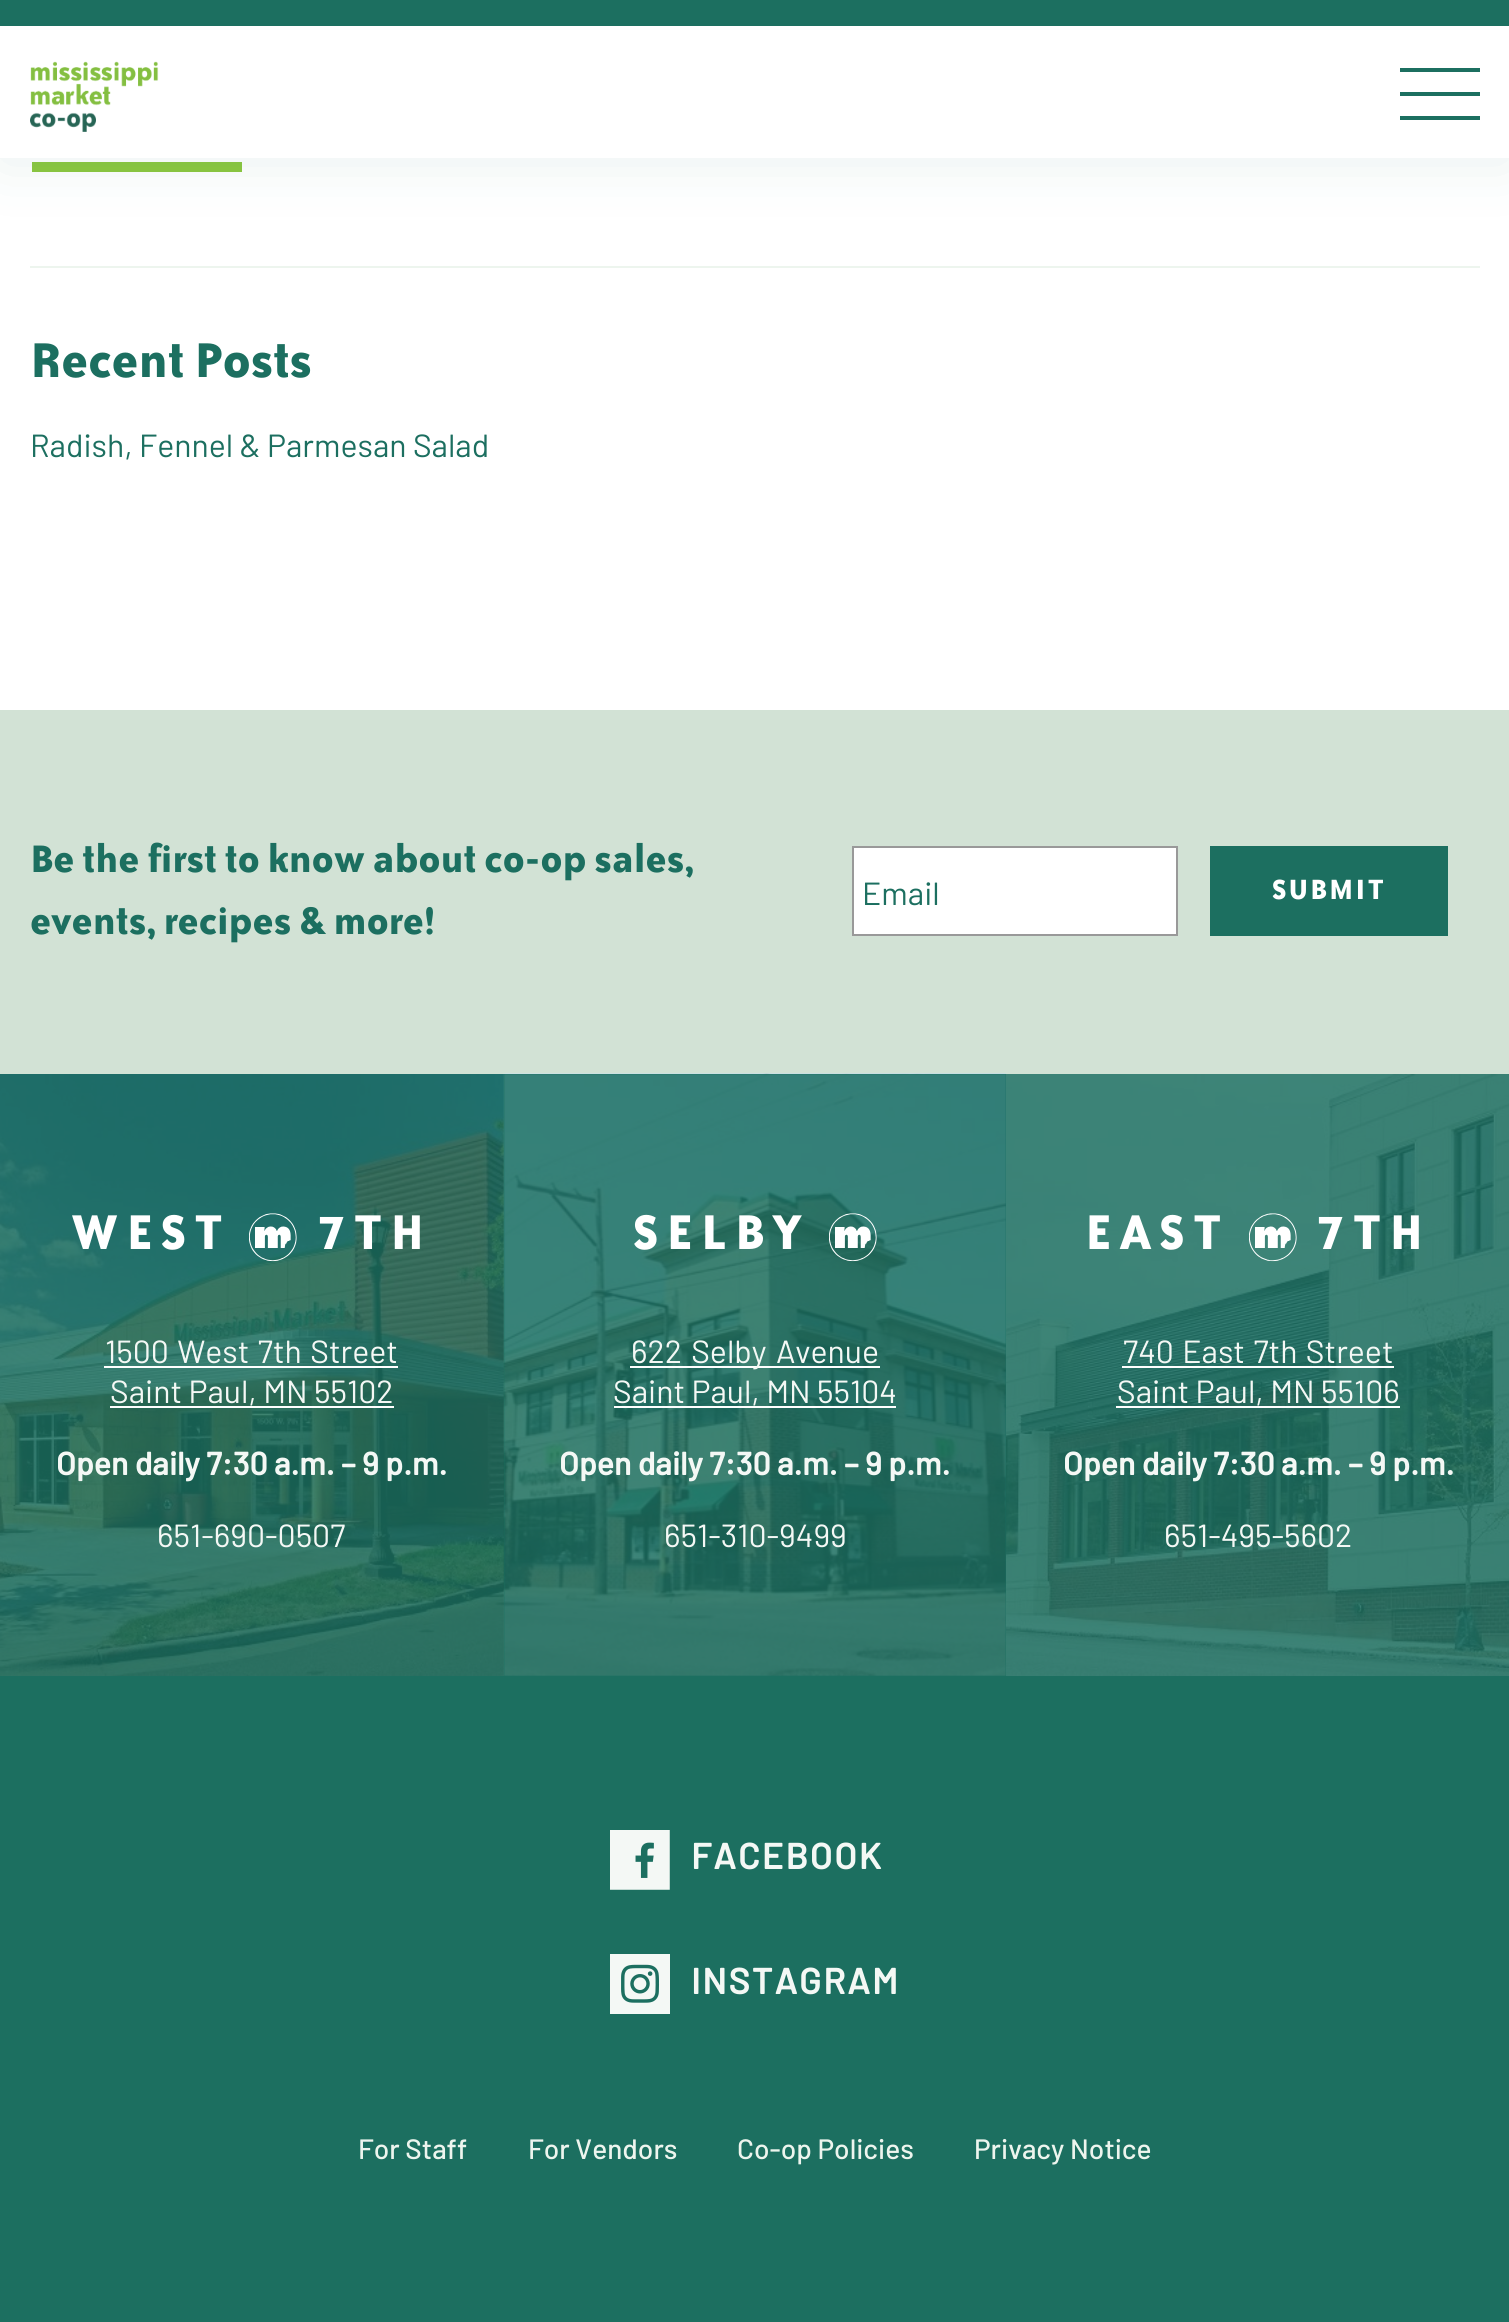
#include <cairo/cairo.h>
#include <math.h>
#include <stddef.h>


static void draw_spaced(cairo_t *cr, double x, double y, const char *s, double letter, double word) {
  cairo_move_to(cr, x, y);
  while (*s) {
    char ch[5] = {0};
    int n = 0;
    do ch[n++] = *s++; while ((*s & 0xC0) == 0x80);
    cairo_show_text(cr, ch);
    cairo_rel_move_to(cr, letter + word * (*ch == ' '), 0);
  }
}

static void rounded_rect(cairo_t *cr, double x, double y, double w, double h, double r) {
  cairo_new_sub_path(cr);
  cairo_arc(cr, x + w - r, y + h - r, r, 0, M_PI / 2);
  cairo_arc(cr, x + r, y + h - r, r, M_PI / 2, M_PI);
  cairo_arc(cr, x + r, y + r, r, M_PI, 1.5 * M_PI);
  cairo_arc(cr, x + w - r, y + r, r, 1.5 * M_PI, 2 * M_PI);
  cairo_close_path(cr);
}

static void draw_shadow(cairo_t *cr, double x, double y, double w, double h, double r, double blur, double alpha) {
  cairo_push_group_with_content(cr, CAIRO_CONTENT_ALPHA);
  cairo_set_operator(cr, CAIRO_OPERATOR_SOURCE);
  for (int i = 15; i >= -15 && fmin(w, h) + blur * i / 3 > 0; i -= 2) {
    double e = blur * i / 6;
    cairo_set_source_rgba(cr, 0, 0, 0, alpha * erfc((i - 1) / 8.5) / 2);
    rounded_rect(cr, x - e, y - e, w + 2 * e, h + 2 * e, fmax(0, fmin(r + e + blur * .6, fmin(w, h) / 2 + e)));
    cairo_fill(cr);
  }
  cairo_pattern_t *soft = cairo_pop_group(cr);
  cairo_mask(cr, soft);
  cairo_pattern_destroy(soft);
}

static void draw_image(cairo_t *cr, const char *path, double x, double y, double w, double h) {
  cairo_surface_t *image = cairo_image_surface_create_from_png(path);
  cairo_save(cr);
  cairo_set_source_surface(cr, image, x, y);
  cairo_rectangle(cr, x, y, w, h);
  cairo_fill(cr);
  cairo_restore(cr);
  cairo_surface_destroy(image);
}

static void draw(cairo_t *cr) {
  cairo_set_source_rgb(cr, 1, 1, 1);
  cairo_paint(cr);
  cairo_set_source_rgb(cr, 140 / 255.0, 199 / 255.0, 63 / 255.0);
  cairo_rectangle(cr, 32, 162, 210, 10);
  cairo_fill(cr);
  cairo_set_source_rgb(cr, 28 / 255.0, 111 / 255.0, 96 / 255.0);
  draw_shadow(cr, 0, 30, 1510, 132, 0, 30, 0.1);
  cairo_set_source_rgb(cr, 1, 1, 1);
  cairo_rectangle(cr, 0, 26, 1509, 132);
  cairo_fill(cr);
  draw_image(cr, "images/1.png", 30, 61, 129, 71);
  cairo_set_source_rgb(cr, 28 / 255.0, 111 / 255.0, 96 / 255.0);
  cairo_rectangle(cr, 1400, 116, 80, 4);
  cairo_fill(cr);
  cairo_rectangle(cr, 1400, 92, 80, 4);
  cairo_fill(cr);
  cairo_rectangle(cr, 1400, 68, 80, 4);
  cairo_fill(cr);
  cairo_rectangle(cr, 0, 0, 1509, 26);
  cairo_fill(cr);
  cairo_set_source_rgb(cr, 237 / 255.0, 245 / 255.0, 238 / 255.0);
  cairo_rectangle(cr, 30, 266, 1450, 2);
  cairo_fill(cr);
  cairo_set_source_rgb(cr, 28 / 255.0, 111 / 255.0, 96 / 255.0);
  cairo_rectangle(cr, 0, 1676, 1509, 646);
  cairo_fill(cr);
  cairo_rectangle(cr, 504, 1074, 502, 602);
  cairo_fill(cr);
  cairo_set_source_rgb(cr, 210 / 255.0, 226 / 255.0, 213 / 255.0);
  cairo_rectangle(cr, 0, 710, 1509, 364);
  cairo_fill(cr);
  cairo_set_source_rgb(cr, 1, 1, 1);
  cairo_rectangle(cr, 853, 847, 324, 88);
  cairo_fill_preserve(cr);
  cairo_set_source_rgb(cr, 153 / 255.0, 153 / 255.0, 153 / 255.0);
  cairo_stroke(cr);
  cairo_set_source_rgb(cr, 28 / 255.0, 111 / 255.0, 96 / 255.0);
  cairo_rectangle(cr, 1210, 846, 238, 90);
  cairo_fill(cr);
  draw_image(cr, "images/2.png", 0, 1074, 504, 602);
  draw_image(cr, "images/4.png", 503, 1073, 504, 603);
  cairo_set_source_rgba(cr, 28 / 255.0, 111 / 255.0, 96 / 255.0, 0.85);
  cairo_rectangle(cr, 0, 1074, 504, 602);
  cairo_fill(cr);
  draw_image(cr, "images/3.png", 249, 1213, 48, 49);
  cairo_set_source_rgb(cr, 1, 1, 1);
  cairo_rectangle(cr, 104, 1366, 294, 2);
  cairo_fill(cr);
  cairo_rectangle(cr, 110, 1406, 284, 2);
  cairo_fill(cr);
  draw_image(cr, "images/5.png", 829, 1213, 48, 49);
  cairo_rectangle(cr, 630, 1366, 250, 2);
  cairo_fill(cr);
  cairo_rectangle(cr, 614, 1406, 282, 2);
  cairo_fill(cr);
  draw_image(cr, "images/6.png", 1006, 1074, 503, 602);
  draw_image(cr, "images/7.png", 1249, 1213, 48, 49);
  cairo_rectangle(cr, 1122, 1366, 272, 2);
  cairo_fill(cr);
  cairo_rectangle(cr, 1116, 1406, 284, 2);
  cairo_fill(cr);
  draw_image(cr, "images/8.png", 610, 1830, 60, 60);
  draw_image(cr, "images/9.png", 610, 1954, 60, 60);
  cairo_select_font_face(cr, "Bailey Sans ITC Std", CAIRO_FONT_SLANT_NORMAL, CAIRO_FONT_WEIGHT_BOLD);
  cairo_set_font_size(cr, 56);
  cairo_set_source_rgb(cr, 28 / 255.0, 111 / 255.0, 96 / 255.0);
  cairo_move_to(cr, 30, 377);
  cairo_show_text(cr, "Recent Posts");
  cairo_select_font_face(cr, "Barlow", CAIRO_FONT_SLANT_NORMAL, CAIRO_FONT_WEIGHT_NORMAL);
  cairo_set_font_size(cr, 32);
  cairo_move_to(cr, 30, 457);
  cairo_show_text(cr, "Radish, Fennel & Parmesan Salad");
  cairo_select_font_face(cr, "Bailey Sans ITC Std", CAIRO_FONT_SLANT_NORMAL, CAIRO_FONT_WEIGHT_BOLD);
  cairo_set_font_size(cr, 44);
  cairo_move_to(cr, 30, 872);
  cairo_show_text(cr, "Be the first to know about co-op sales,");
  cairo_move_to(cr, 30, 934);
  cairo_show_text(cr, "events, recipes & more!");
  cairo_select_font_face(cr, "Barlow", CAIRO_FONT_SLANT_NORMAL, CAIRO_FONT_WEIGHT_NORMAL);
  cairo_set_font_size(cr, 32);
  cairo_move_to(cr, 862, 905);
  cairo_show_text(cr, "Email");
  cairo_select_font_face(cr, "Bailey Sans ITC Std", CAIRO_FONT_SLANT_NORMAL, CAIRO_FONT_WEIGHT_BOLD);
  cairo_set_source_rgb(cr, 1, 1, 1);
  draw_spaced(cr, 1272, 899, "SUBMIT", 2, 0);
  cairo_set_font_size(cr, 56);
  draw_spaced(cr, 71, 1249, "WEST", 8, 0);
  draw_spaced(cr, 317, 1249, "7TH", 8, 0);
  cairo_select_font_face(cr, "Barlow", CAIRO_FONT_SLANT_NORMAL, CAIRO_FONT_WEIGHT_NORMAL);
  cairo_set_font_size(cr, 32);
  cairo_set_source_rgb(cr, 244 / 255.0, 248 / 255.0, 245 / 255.0);
  draw_spaced(cr, 105, 1363, "1500 West 7th Street", 0, 2);
  cairo_move_to(cr, 110, 1403);
  cairo_show_text(cr, "Saint Paul, MN 55102");
  cairo_select_font_face(cr, "Barlow", CAIRO_FONT_SLANT_NORMAL, CAIRO_FONT_WEIGHT_BOLD);
  cairo_move_to(cr, 56, 1475);
  cairo_show_text(cr, "Open daily 7:30 a.m. – 9 p.m.");
  cairo_select_font_face(cr, "Barlow", CAIRO_FONT_SLANT_NORMAL, CAIRO_FONT_WEIGHT_NORMAL);
  cairo_move_to(cr, 157, 1547);
  cairo_show_text(cr, "651-690-0507");
  cairo_select_font_face(cr, "Bailey Sans ITC Std", CAIRO_FONT_SLANT_NORMAL, CAIRO_FONT_WEIGHT_BOLD);
  cairo_set_font_size(cr, 56);
  cairo_set_source_rgb(cr, 1, 1, 1);
  draw_spaced(cr, 633, 1249, "SELBY", 8, 0);
  cairo_select_font_face(cr, "Barlow", CAIRO_FONT_SLANT_NORMAL, CAIRO_FONT_WEIGHT_NORMAL);
  cairo_set_font_size(cr, 32);
  cairo_set_source_rgb(cr, 244 / 255.0, 248 / 255.0, 245 / 255.0);
  draw_spaced(cr, 631, 1363, "622 Selby Avenue", 0, 3);
  cairo_move_to(cr, 613, 1403);
  cairo_show_text(cr, "Saint Paul, MN 55104");
  cairo_select_font_face(cr, "Barlow", CAIRO_FONT_SLANT_NORMAL, CAIRO_FONT_WEIGHT_BOLD);
  cairo_move_to(cr, 559, 1475);
  cairo_show_text(cr, "Open daily 7:30 a.m. – 9 p.m.");
  cairo_select_font_face(cr, "Barlow", CAIRO_FONT_SLANT_NORMAL, CAIRO_FONT_WEIGHT_NORMAL);
  cairo_move_to(cr, 664, 1547);
  cairo_show_text(cr, "651-310-9499");
  cairo_select_font_face(cr, "Bailey Sans ITC Std", CAIRO_FONT_SLANT_NORMAL, CAIRO_FONT_WEIGHT_BOLD);
  cairo_set_font_size(cr, 56);
  cairo_set_source_rgb(cr, 1, 1, 1);
  draw_spaced(cr, 1085, 1249, "EAST", 8, 0);
  draw_spaced(cr, 1316, 1249, "7TH", 8, 0);
  cairo_select_font_face(cr, "Barlow", CAIRO_FONT_SLANT_NORMAL, CAIRO_FONT_WEIGHT_NORMAL);
  cairo_set_font_size(cr, 32);
  cairo_set_source_rgb(cr, 244 / 255.0, 248 / 255.0, 245 / 255.0);
  draw_spaced(cr, 1123, 1363, "740 East 7th Street", 0, 2);
  cairo_move_to(cr, 1117, 1403);
  cairo_show_text(cr, "Saint Paul, MN 55106");
  cairo_select_font_face(cr, "Barlow", CAIRO_FONT_SLANT_NORMAL, CAIRO_FONT_WEIGHT_BOLD);
  cairo_move_to(cr, 1063, 1475);
  cairo_show_text(cr, "Open daily 7:30 a.m. – 9 p.m.");
  cairo_select_font_face(cr, "Barlow", CAIRO_FONT_SLANT_NORMAL, CAIRO_FONT_WEIGHT_NORMAL);
  cairo_move_to(cr, 1164, 1547);
  cairo_show_text(cr, "651-495-5602");
  cairo_select_font_face(cr, "Barlow", CAIRO_FONT_SLANT_NORMAL, CAIRO_FONT_WEIGHT_BOLD);
  cairo_set_font_size(cr, 36);
  draw_spaced(cr, 691, 1869, "FACEBOOK", 2, 0);
  draw_spaced(cr, 691, 1994, "INSTAGRAM", 2, 0);
  cairo_select_font_face(cr, "Barlow Medium", CAIRO_FONT_SLANT_NORMAL, CAIRO_FONT_WEIGHT_NORMAL);
  cairo_set_font_size(cr, 28);
  cairo_set_source_rgb(cr, 237 / 255.0, 245 / 255.0, 238 / 255.0);
  cairo_move_to(cr, 358, 2159);
  cairo_show_text(cr, "For Staff");
  cairo_move_to(cr, 528, 2159);
  cairo_show_text(cr, "For Vendors");
  cairo_move_to(cr, 737, 2159);
  cairo_show_text(cr, "Co-op Policies");
  cairo_move_to(cr, 974, 2159);
  cairo_show_text(cr, "Privacy Notice");
}

int main(void) {
  cairo_surface_t *surface = cairo_image_surface_create(CAIRO_FORMAT_RGB24, 1509, 2322);
  cairo_t *cr = cairo_create(surface);
  cairo_font_options_t *options = cairo_font_options_create();
  cairo_font_options_set_hint_metrics(options, CAIRO_HINT_METRICS_OFF);
  cairo_font_options_set_hint_style(options, CAIRO_HINT_STYLE_NONE);
  cairo_set_font_options(cr, options);
  cairo_set_miter_limit(cr, 4);
  draw(cr);
  cairo_surface_write_to_png(surface, "out.png");
  cairo_font_options_destroy(options);
  cairo_destroy(cr);
  cairo_surface_destroy(surface);
  return 0;
}
